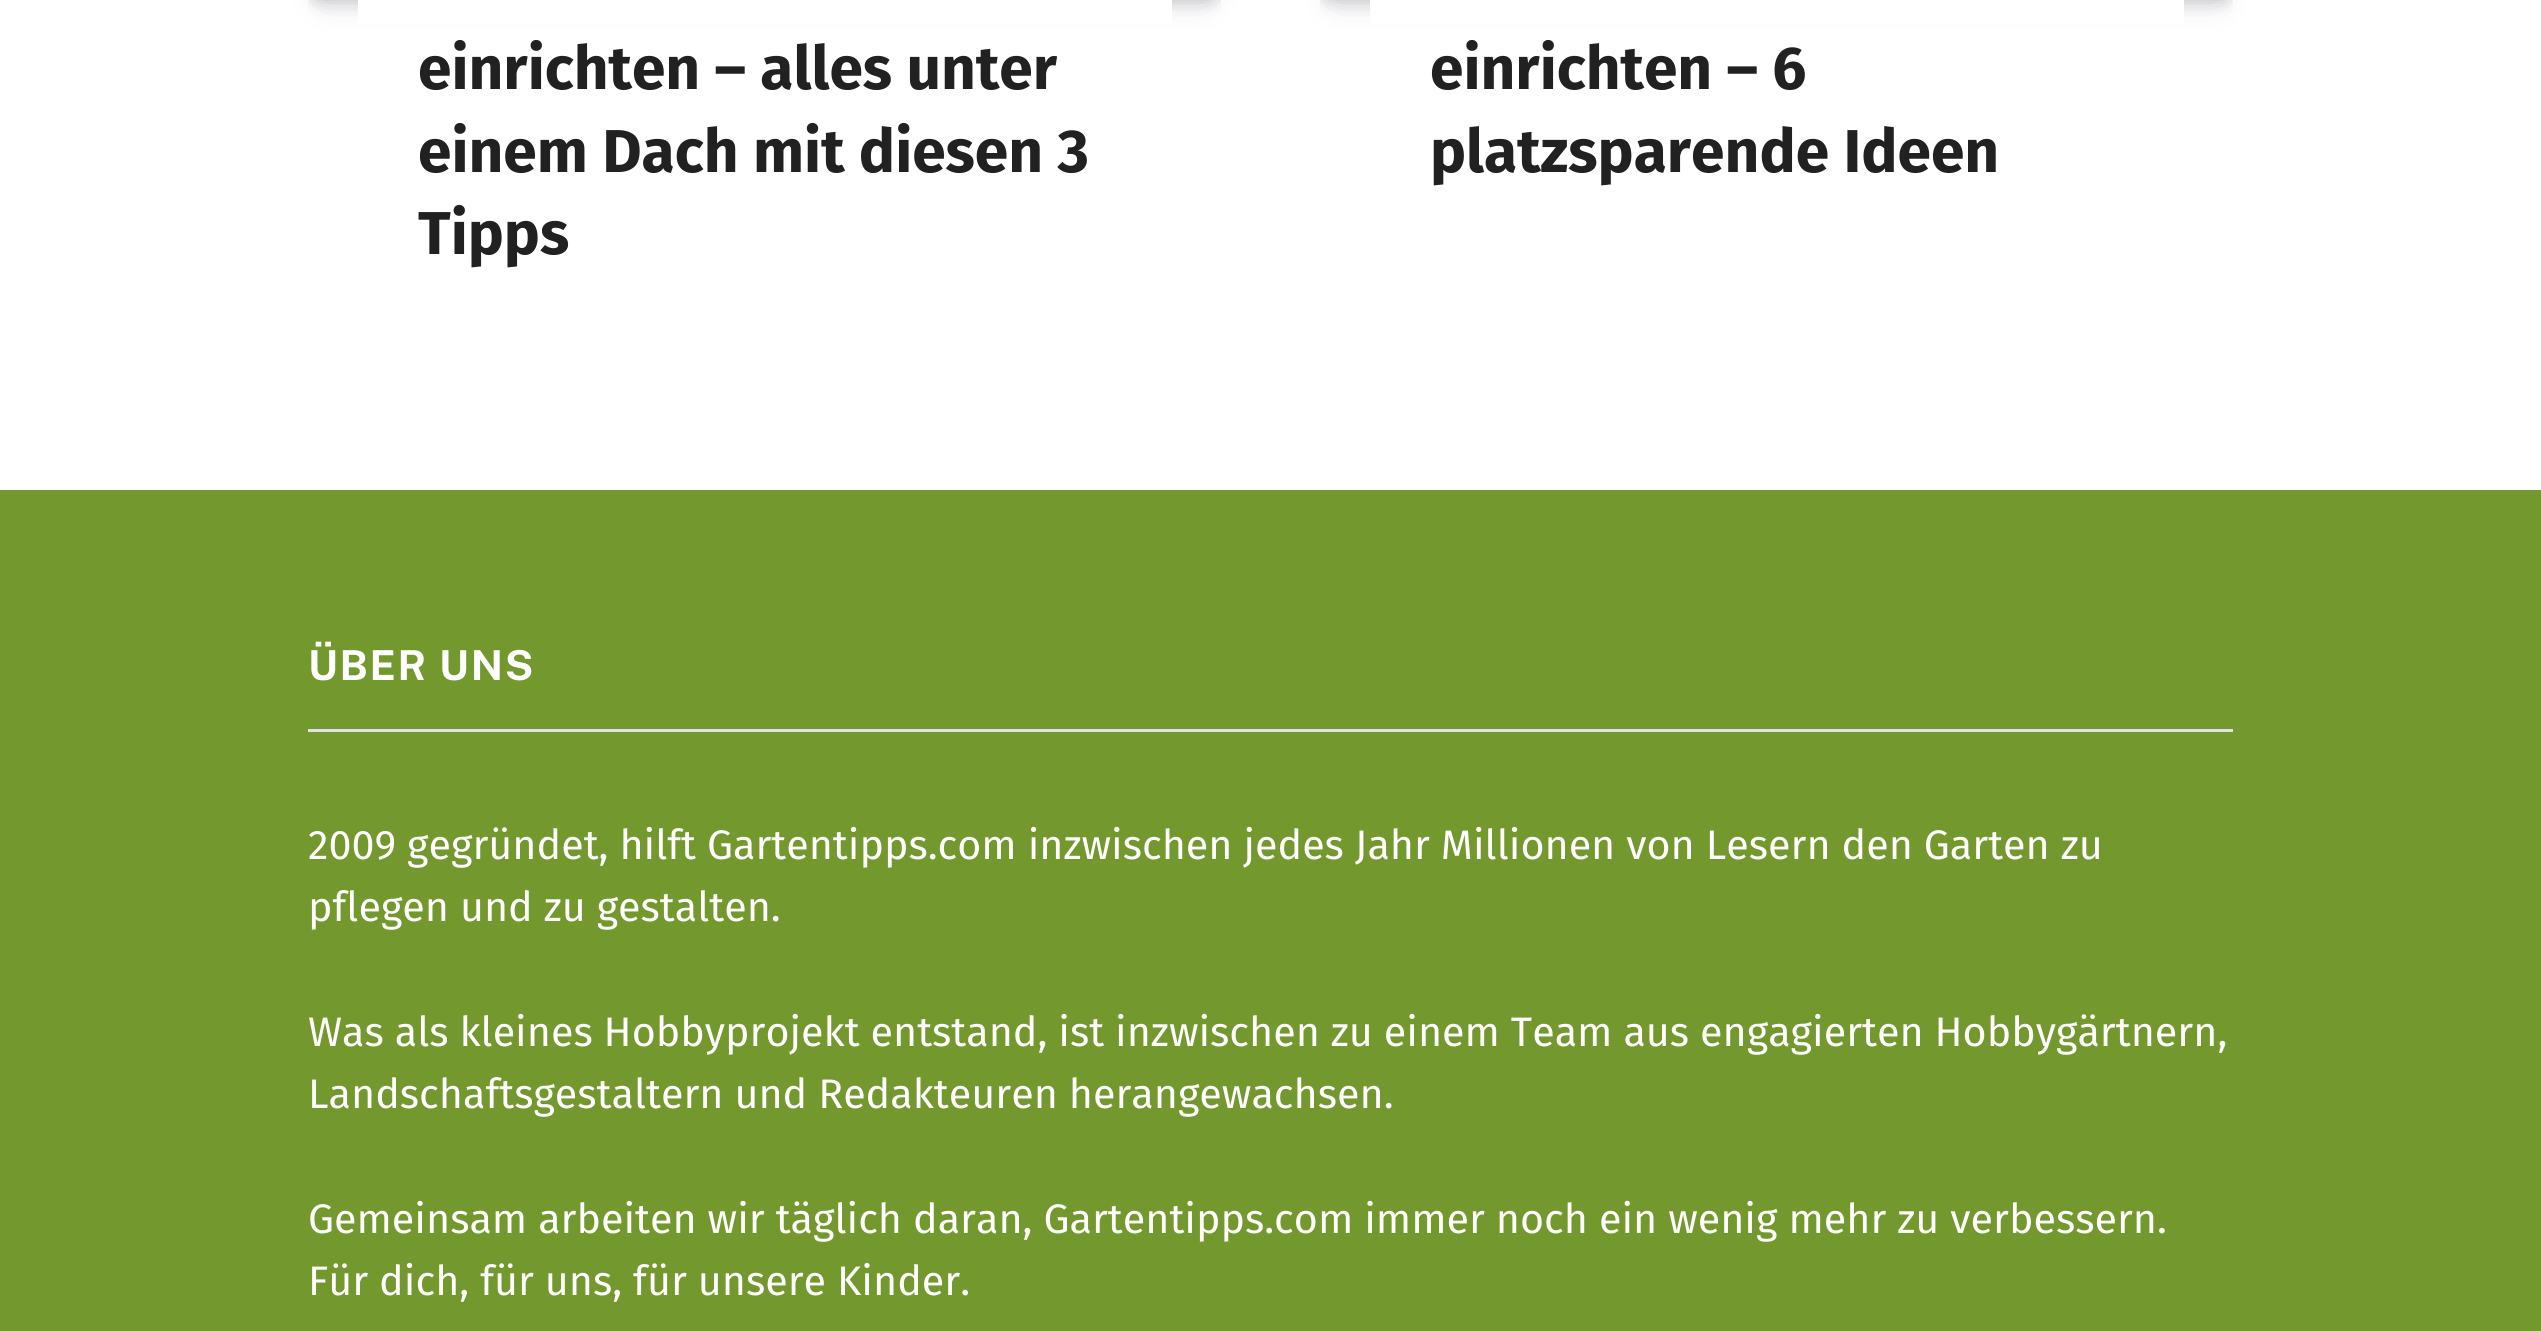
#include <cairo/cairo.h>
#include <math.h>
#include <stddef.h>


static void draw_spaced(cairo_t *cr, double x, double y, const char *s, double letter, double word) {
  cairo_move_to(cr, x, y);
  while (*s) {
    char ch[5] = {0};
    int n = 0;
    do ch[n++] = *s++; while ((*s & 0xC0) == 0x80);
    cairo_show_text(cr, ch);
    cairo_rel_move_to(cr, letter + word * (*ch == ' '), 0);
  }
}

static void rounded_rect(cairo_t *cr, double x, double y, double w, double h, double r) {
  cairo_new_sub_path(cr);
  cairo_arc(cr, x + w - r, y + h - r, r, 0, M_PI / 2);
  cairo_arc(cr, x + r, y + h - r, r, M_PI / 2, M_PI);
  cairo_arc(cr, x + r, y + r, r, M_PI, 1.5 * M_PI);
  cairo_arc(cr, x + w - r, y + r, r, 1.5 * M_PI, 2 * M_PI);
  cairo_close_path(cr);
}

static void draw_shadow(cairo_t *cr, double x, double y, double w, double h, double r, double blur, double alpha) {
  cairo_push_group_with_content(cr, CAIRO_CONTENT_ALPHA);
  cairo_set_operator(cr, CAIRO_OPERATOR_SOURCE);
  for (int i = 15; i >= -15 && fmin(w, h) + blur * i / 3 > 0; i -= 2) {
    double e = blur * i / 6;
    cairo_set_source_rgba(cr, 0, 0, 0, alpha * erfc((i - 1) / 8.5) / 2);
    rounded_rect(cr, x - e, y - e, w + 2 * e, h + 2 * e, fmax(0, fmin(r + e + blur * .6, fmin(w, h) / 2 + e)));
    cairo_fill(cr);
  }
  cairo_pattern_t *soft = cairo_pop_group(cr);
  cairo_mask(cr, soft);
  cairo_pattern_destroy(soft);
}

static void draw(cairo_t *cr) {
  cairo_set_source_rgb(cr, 1, 1, 1);
  cairo_paint(cr);
  cairo_set_source_rgb(cr, 7 / 255.0, 10 / 255.0, 25 / 255.0);
  draw_shadow(cr, 325, -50, 880, 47, 0, 16.5, 0.2);
  cairo_save(cr);
  rounded_rect(cr, 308, -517, 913, 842, 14);
  cairo_clip(cr);
  draw_shadow(cr, 311, -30, 907, 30, 6, 8, 0.2);
  cairo_restore(cr);
  cairo_set_source_rgb(cr, 1, 1, 1);
  cairo_rectangle(cr, 358, 0, 814, 24);
  cairo_fill(cr);
  cairo_set_source_rgb(cr, 7 / 255.0, 10 / 255.0, 25 / 255.0);
  draw_shadow(cr, 1337, -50, 880, 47, 0, 16.5, 0.2);
  cairo_save(cr);
  rounded_rect(cr, 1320, -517, 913, 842, 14);
  cairo_clip(cr);
  draw_shadow(cr, 1323, -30, 907, 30, 6, 8, 0.2);
  cairo_restore(cr);
  cairo_set_source_rgb(cr, 1, 1, 1);
  cairo_rectangle(cr, 1370, 0, 814, 24);
  cairo_fill(cr);
  cairo_set_source_rgb(cr, 115 / 255.0, 152 / 255.0, 45 / 255.0);
  cairo_rectangle(cr, 0, 490, 2541, 841);
  cairo_fill(cr);
  cairo_set_source_rgb(cr, 226 / 255.0, 226 / 255.0, 226 / 255.0);
  cairo_rectangle(cr, 308, 729, 1925, 3);
  cairo_fill(cr);
  cairo_select_font_face(cr, "Fira Sans", CAIRO_FONT_SLANT_NORMAL, CAIRO_FONT_WEIGHT_BOLD);
  cairo_set_font_size(cr, 60.5);
  cairo_set_source_rgb(cr, 33 / 255.0, 33 / 255.0, 33 / 255.0);
  cairo_move_to(cr, 418, 89);
  cairo_show_text(cr, "einrichten – alles unter");
  cairo_move_to(cr, 418, 172);
  cairo_show_text(cr, "einem Dach mit diesen 3");
  cairo_move_to(cr, 418, 254);
  cairo_show_text(cr, "Tipps");
  cairo_move_to(cr, 1430, 89);
  cairo_show_text(cr, "einrichten – 6");
  cairo_move_to(cr, 1430, 172);
  cairo_show_text(cr, "platzsparende Ideen");
  cairo_select_font_face(cr, "Public Sans", CAIRO_FONT_SLANT_NORMAL, CAIRO_FONT_WEIGHT_BOLD);
  cairo_set_font_size(cr, 41.25);
  cairo_set_source_rgb(cr, 1, 1, 1);
  draw_spaced(cr, 308, 680, "ÜBER UNS", 1.75, 0);
  cairo_select_font_face(cr, "Fira Sans", CAIRO_FONT_SLANT_NORMAL, CAIRO_FONT_WEIGHT_NORMAL);
  cairo_move_to(cr, 308, 859);
  cairo_show_text(cr, "2009 gegründet, hilft Gartentipps.com inzwischen jedes Jahr Millionen von Lesern den Garten zu");
  cairo_move_to(cr, 308, 921);
  cairo_show_text(cr, "pflegen und zu gestalten.");
  cairo_move_to(cr, 308, 1046);
  cairo_show_text(cr, "Was als kleines Hobbyprojekt entstand, ist inzwischen zu einem Team aus engagierten Hobbygärtnern,");
  cairo_move_to(cr, 308, 1108);
  cairo_show_text(cr, "Landschaftsgestaltern und Redakteuren herangewachsen.");
  cairo_move_to(cr, 308, 1233);
  cairo_show_text(cr, "Gemeinsam arbeiten wir täglich daran, Gartentipps.com immer noch ein wenig mehr zu verbessern.");
  cairo_move_to(cr, 308, 1295);
  cairo_show_text(cr, "Für dich, für uns, für unsere Kinder.");
}

int main(void) {
  cairo_surface_t *surface = cairo_image_surface_create(CAIRO_FORMAT_RGB24, 2541, 1331);
  cairo_t *cr = cairo_create(surface);
  cairo_font_options_t *options = cairo_font_options_create();
  cairo_font_options_set_hint_metrics(options, CAIRO_HINT_METRICS_OFF);
  cairo_font_options_set_hint_style(options, CAIRO_HINT_STYLE_NONE);
  cairo_set_font_options(cr, options);
  cairo_set_miter_limit(cr, 4);
  draw(cr);
  cairo_surface_write_to_png(surface, "out.png");
  cairo_font_options_destroy(options);
  cairo_destroy(cr);
  cairo_surface_destroy(surface);
  return 0;
}
